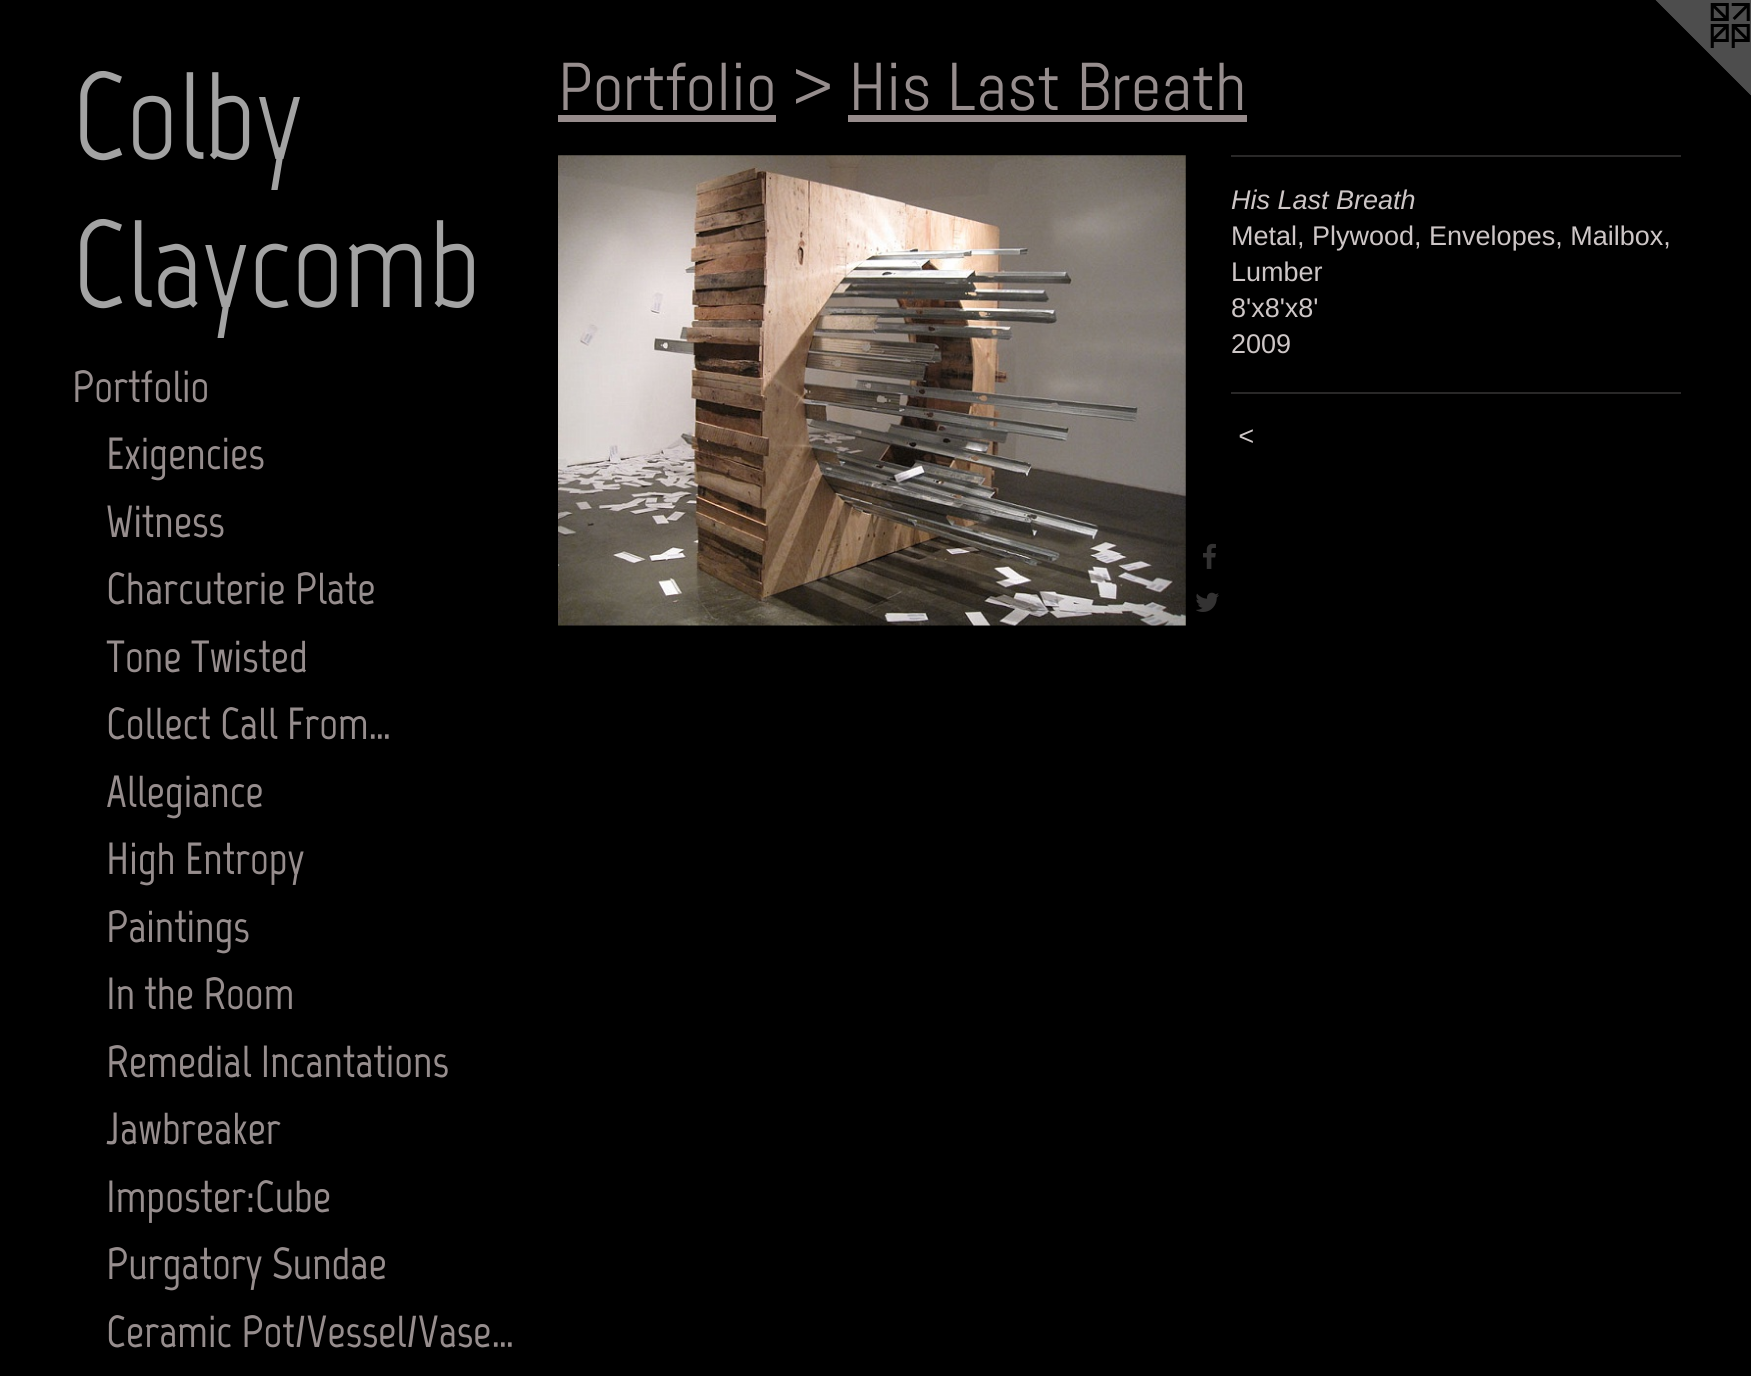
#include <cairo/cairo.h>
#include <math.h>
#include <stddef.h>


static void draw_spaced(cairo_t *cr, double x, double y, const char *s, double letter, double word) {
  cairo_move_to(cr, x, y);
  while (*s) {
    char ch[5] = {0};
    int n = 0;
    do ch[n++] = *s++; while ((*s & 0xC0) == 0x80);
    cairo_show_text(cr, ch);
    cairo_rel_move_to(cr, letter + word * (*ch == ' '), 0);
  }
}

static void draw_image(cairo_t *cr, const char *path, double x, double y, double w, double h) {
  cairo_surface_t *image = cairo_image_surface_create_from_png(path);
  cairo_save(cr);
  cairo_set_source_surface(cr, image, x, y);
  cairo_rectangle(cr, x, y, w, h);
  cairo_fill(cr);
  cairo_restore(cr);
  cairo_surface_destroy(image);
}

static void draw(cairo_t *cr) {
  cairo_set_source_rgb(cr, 0, 0, 0);
  cairo_paint(cr);
  draw_image(cr, "images/1.png", 1655, 0, 96, 96);
  cairo_set_source_rgb(cr, 151 / 255.0, 140 / 255.0, 140 / 255.0);
  cairo_rectangle(cr, 558, 115, 218, 7);
  cairo_fill(cr);
  cairo_rectangle(cr, 848, 115, 399, 7);
  cairo_fill(cr);
  draw_image(cr, "images/2.png", 558, 155, 628, 471);
  draw_image(cr, "images/3.png", 1203, 543, 13, 26);
  draw_image(cr, "images/4.png", 1196, 592, 23, 20);
  cairo_set_source_rgb(cr, 41 / 255.0, 40 / 255.0, 40 / 255.0);
  cairo_rectangle(cr, 1231, 155, 450, 2);
  cairo_fill(cr);
  cairo_rectangle(cr, 1231, 392, 450, 2);
  cairo_fill(cr);
  cairo_select_font_face(cr, "Marvel", CAIRO_FONT_SLANT_NORMAL, CAIRO_FONT_WEIGHT_NORMAL);
  cairo_set_font_size(cr, 124);
  cairo_set_source_rgb(cr, 163 / 255.0, 163 / 255.0, 163 / 255.0);
  cairo_move_to(cr, 72, 159);
  cairo_show_text(cr, "Colby");
  cairo_move_to(cr, 72, 307);
  cairo_show_text(cr, "Claycomb");
  cairo_select_font_face(cr, "Marvel", CAIRO_FONT_SLANT_NORMAL, CAIRO_FONT_WEIGHT_BOLD);
  cairo_set_font_size(cr, 45);
  cairo_set_source_rgb(cr, 150 / 255.0, 141 / 255.0, 141 / 255.0);
  cairo_move_to(cr, 72, 402);
  cairo_show_text(cr, "Portfolio");
  cairo_move_to(cr, 106, 469);
  cairo_show_text(cr, "Exigencies");
  cairo_move_to(cr, 106, 537);
  cairo_show_text(cr, "Witness");
  cairo_move_to(cr, 106, 604);
  cairo_show_text(cr, "Charcuterie Plate");
  cairo_move_to(cr, 106, 672);
  cairo_show_text(cr, "Tone Twisted");
  cairo_move_to(cr, 106, 739);
  cairo_show_text(cr, "Collect Call From…");
  cairo_move_to(cr, 106, 807);
  cairo_show_text(cr, "Allegiance");
  cairo_move_to(cr, 106, 874);
  cairo_show_text(cr, "High Entropy");
  cairo_move_to(cr, 106, 942);
  cairo_show_text(cr, "Paintings");
  cairo_move_to(cr, 106, 1009);
  cairo_show_text(cr, "In the Room");
  cairo_move_to(cr, 106, 1077);
  cairo_show_text(cr, "Remedial Incantations");
  cairo_move_to(cr, 106, 1144);
  cairo_show_text(cr, "Jawbreaker");
  cairo_move_to(cr, 106, 1212);
  cairo_show_text(cr, "Imposter:Cube");
  cairo_move_to(cr, 106, 1279);
  cairo_show_text(cr, "Purgatory Sundae");
  cairo_move_to(cr, 106, 1347);
  cairo_show_text(cr, "Ceramic Pot/Vessel/Vase…");
  cairo_select_font_face(cr, "Abel", CAIRO_FONT_SLANT_NORMAL, CAIRO_FONT_WEIGHT_NORMAL);
  cairo_set_font_size(cr, 67.5);
  cairo_move_to(cr, 558, 110);
  cairo_show_text(cr, "Portfolio > His Last Breath");
  cairo_select_font_face(cr, "Liberation Sans", CAIRO_FONT_SLANT_ITALIC, CAIRO_FONT_WEIGHT_NORMAL);
  cairo_set_font_size(cr, 27);
  cairo_set_source_rgb(cr, 205 / 255.0, 198 / 255.0, 198 / 255.0);
  cairo_move_to(cr, 1231, 209);
  cairo_show_text(cr, "His Last Breath");
  cairo_select_font_face(cr, "Liberation Sans", CAIRO_FONT_SLANT_NORMAL, CAIRO_FONT_WEIGHT_NORMAL);
  cairo_move_to(cr, 1231, 245);
  cairo_show_text(cr, "Metal, Plywood, Envelopes, Mailbox,");
  cairo_move_to(cr, 1231, 281);
  cairo_show_text(cr, "Lumber");
  cairo_move_to(cr, 1231, 317);
  cairo_show_text(cr, "8'x8'x8'");
  cairo_move_to(cr, 1231, 353);
  cairo_show_text(cr, "2009");
  cairo_select_font_face(cr, "Liberation Sans", CAIRO_FONT_SLANT_ITALIC, CAIRO_FONT_WEIGHT_NORMAL);
  draw_spaced(cr, 1238, 445, "<", 2, 0);
}

int main(void) {
  cairo_surface_t *surface = cairo_image_surface_create(CAIRO_FORMAT_RGB24, 1751, 1376);
  cairo_t *cr = cairo_create(surface);
  cairo_font_options_t *options = cairo_font_options_create();
  cairo_font_options_set_hint_metrics(options, CAIRO_HINT_METRICS_OFF);
  cairo_font_options_set_hint_style(options, CAIRO_HINT_STYLE_NONE);
  cairo_set_font_options(cr, options);
  cairo_set_miter_limit(cr, 4);
  draw(cr);
  cairo_surface_write_to_png(surface, "out.png");
  cairo_font_options_destroy(options);
  cairo_destroy(cr);
  cairo_surface_destroy(surface);
  return 0;
}
